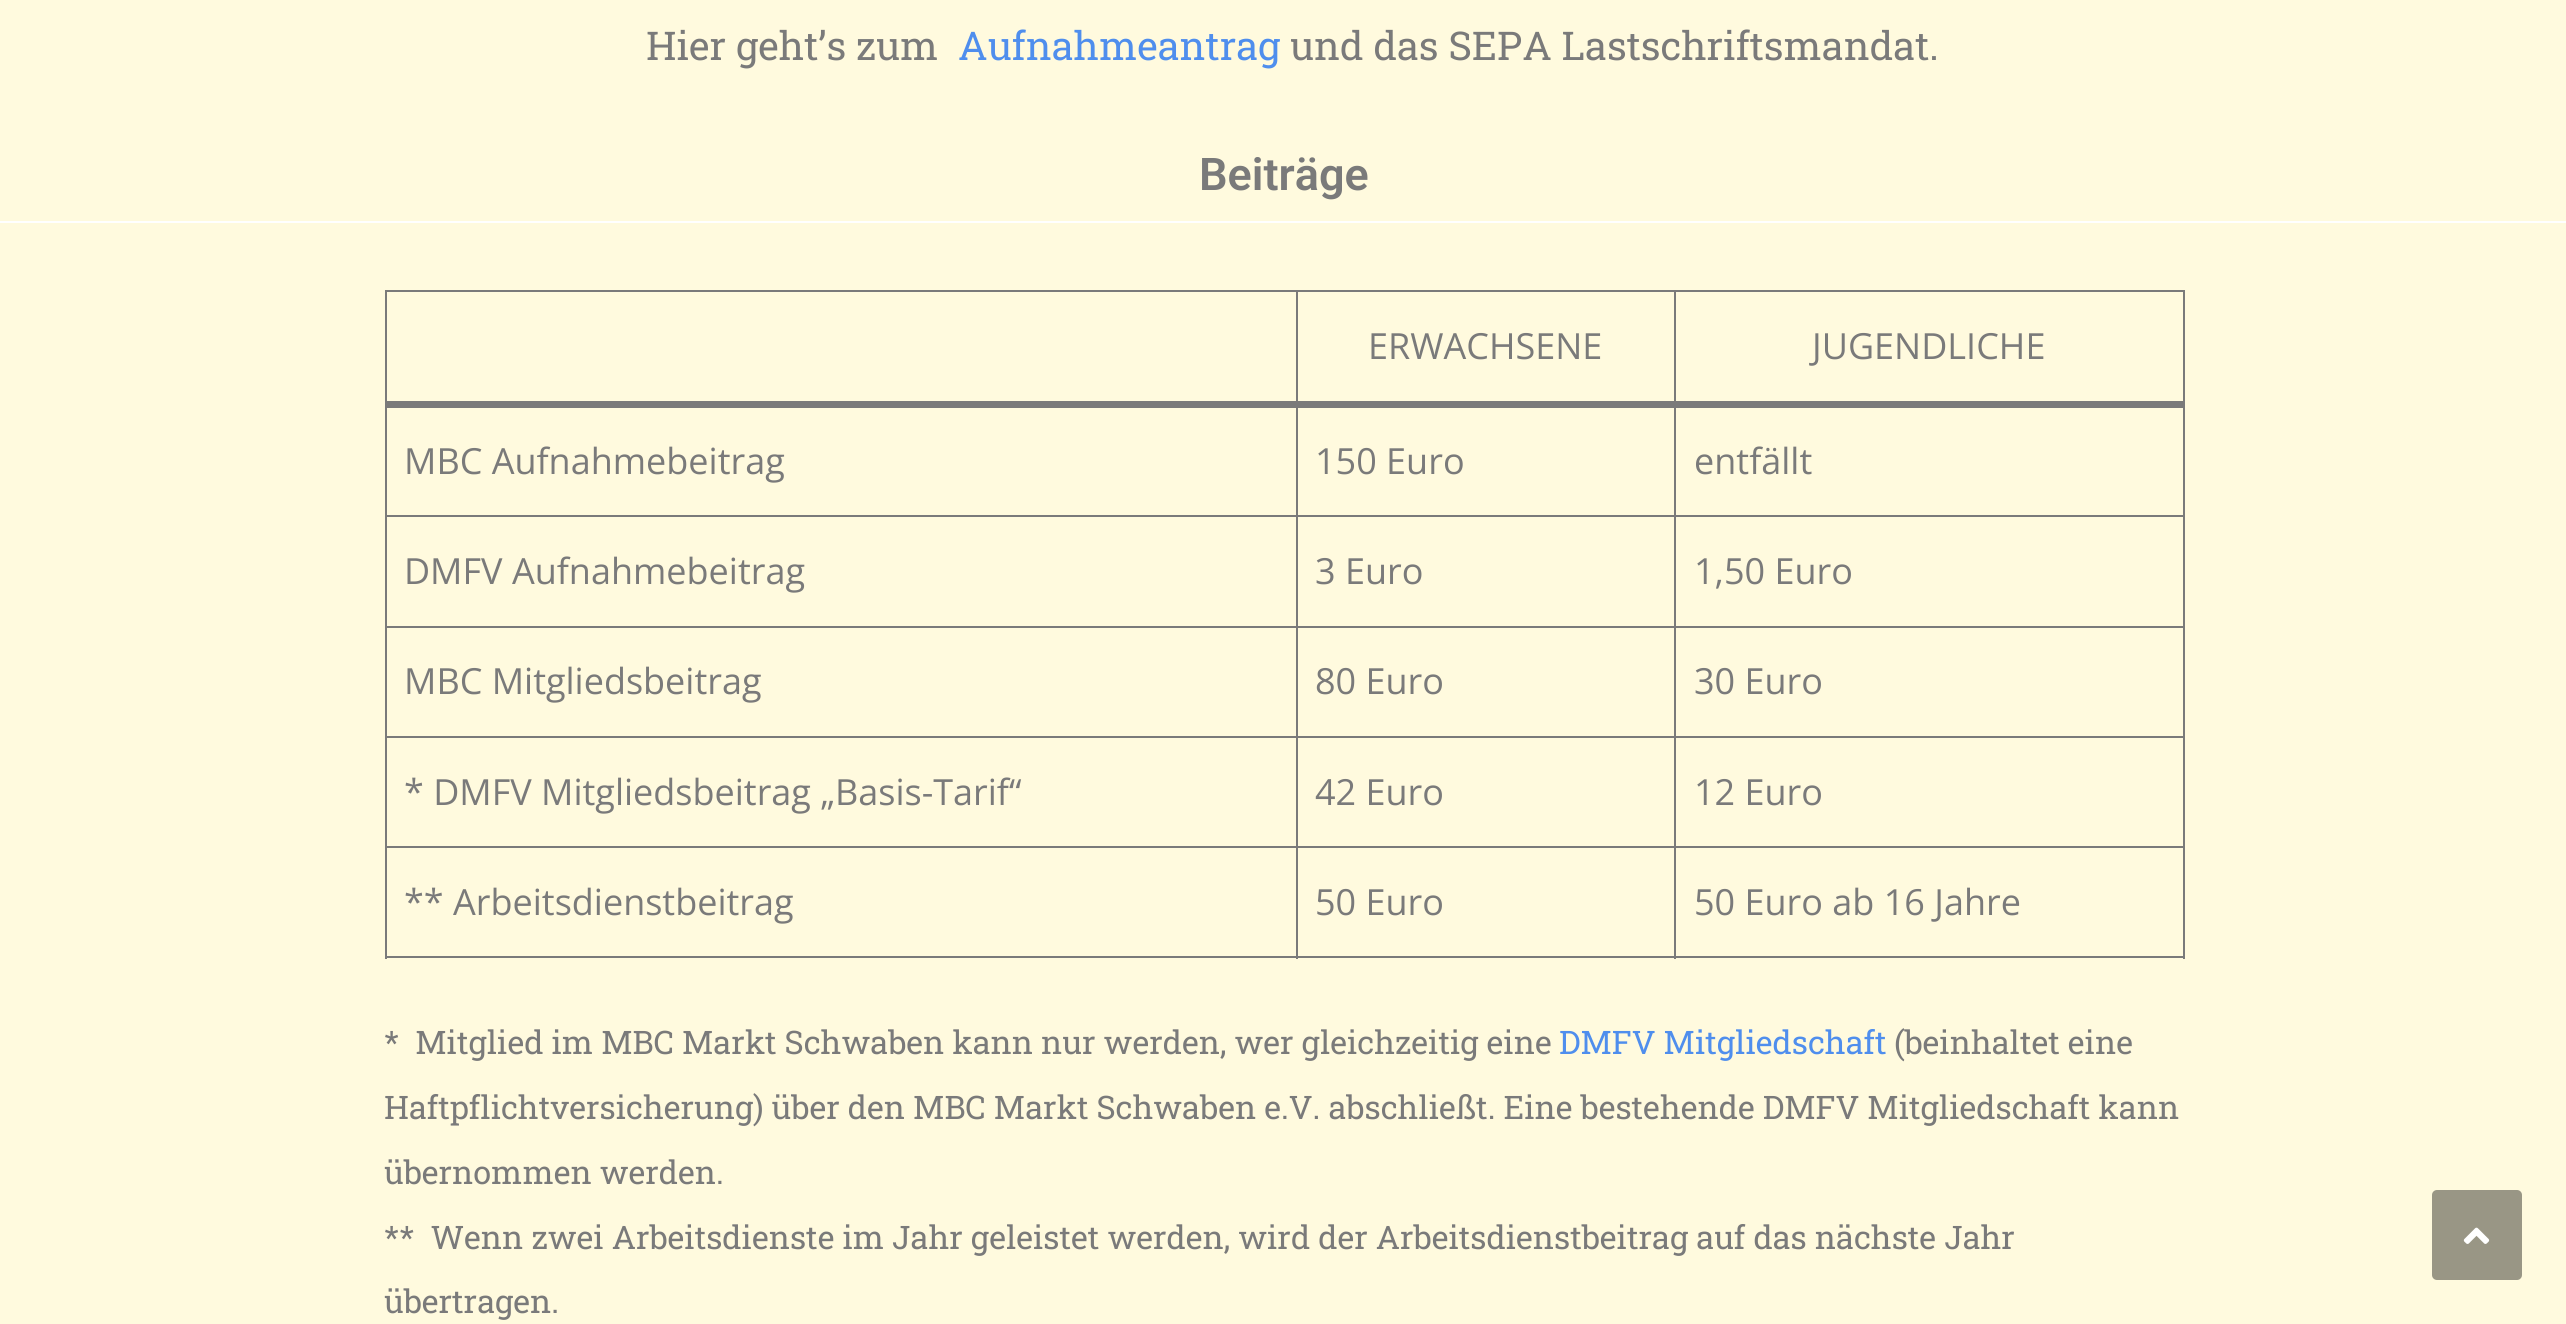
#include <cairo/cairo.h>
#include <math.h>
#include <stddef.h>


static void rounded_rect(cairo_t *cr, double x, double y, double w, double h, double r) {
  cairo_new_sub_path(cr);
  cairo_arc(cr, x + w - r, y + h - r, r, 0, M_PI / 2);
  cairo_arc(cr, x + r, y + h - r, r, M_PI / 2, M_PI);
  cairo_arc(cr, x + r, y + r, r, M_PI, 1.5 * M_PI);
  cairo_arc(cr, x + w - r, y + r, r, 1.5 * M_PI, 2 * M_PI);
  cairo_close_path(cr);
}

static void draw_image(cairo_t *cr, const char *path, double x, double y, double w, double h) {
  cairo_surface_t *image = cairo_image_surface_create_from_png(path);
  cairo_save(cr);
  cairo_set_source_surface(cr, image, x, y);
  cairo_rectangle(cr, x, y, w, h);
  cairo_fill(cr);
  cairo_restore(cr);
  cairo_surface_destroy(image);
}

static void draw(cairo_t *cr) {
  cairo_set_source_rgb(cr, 1, 1, 1);
  cairo_paint(cr);
  cairo_set_source_rgb(cr, 1, 250 / 255.0, 222 / 255.0);
  cairo_rectangle(cr, 0, 0, 2566, 221);
  cairo_fill(cr);
  cairo_rectangle(cr, 0, 223, 2566, 1101);
  cairo_fill(cr);
  cairo_set_source_rgb(cr, 122 / 255.0, 122 / 255.0, 122 / 255.0);
  cairo_rectangle(cr, 1674, 290, 511, 2);
  cairo_fill(cr);
  cairo_rectangle(cr, 1674, 515, 511, 2);
  cairo_fill(cr);
  cairo_rectangle(cr, 1674, 626, 511, 2);
  cairo_fill(cr);
  cairo_rectangle(cr, 1674, 736, 511, 2);
  cairo_fill(cr);
  cairo_rectangle(cr, 1674, 846, 511, 2);
  cairo_fill(cr);
  cairo_rectangle(cr, 2183, 846, 2, 113);
  cairo_fill(cr);
  cairo_rectangle(cr, 1674, 956, 511, 2);
  cairo_fill(cr);
  cairo_rectangle(cr, 1674, 846, 2, 113);
  cairo_fill(cr);
  cairo_rectangle(cr, 1296, 846, 380, 2);
  cairo_fill(cr);
  cairo_rectangle(cr, 1674, 736, 2, 112);
  cairo_fill(cr);
  cairo_rectangle(cr, 1296, 736, 380, 2);
  cairo_fill(cr);
  cairo_rectangle(cr, 1674, 626, 2, 112);
  cairo_fill(cr);
  cairo_rectangle(cr, 1296, 626, 380, 2);
  cairo_fill(cr);
  cairo_rectangle(cr, 1674, 515, 2, 113);
  cairo_fill(cr);
  cairo_rectangle(cr, 1296, 515, 380, 2);
  cairo_fill(cr);
  cairo_rectangle(cr, 1674, 403, 2, 115);
  cairo_fill(cr);
  cairo_rectangle(cr, 1674, 290, 2, 115);
  cairo_fill(cr);
  cairo_rectangle(cr, 1296, 290, 380, 2);
  cairo_fill(cr);
  cairo_rectangle(cr, 1296, 956, 380, 2);
  cairo_fill(cr);
  cairo_rectangle(cr, 1296, 846, 2, 113);
  cairo_fill(cr);
  cairo_rectangle(cr, 385, 846, 913, 2);
  cairo_fill(cr);
  cairo_rectangle(cr, 1296, 736, 2, 112);
  cairo_fill(cr);
  cairo_rectangle(cr, 385, 736, 913, 2);
  cairo_fill(cr);
  cairo_rectangle(cr, 1296, 626, 2, 112);
  cairo_fill(cr);
  cairo_rectangle(cr, 385, 626, 913, 2);
  cairo_fill(cr);
  cairo_rectangle(cr, 1296, 515, 2, 113);
  cairo_fill(cr);
  cairo_rectangle(cr, 385, 515, 913, 2);
  cairo_fill(cr);
  cairo_rectangle(cr, 1296, 403, 2, 115);
  cairo_fill(cr);
  cairo_rectangle(cr, 1296, 290, 2, 115);
  cairo_fill(cr);
  cairo_rectangle(cr, 385, 290, 913, 2);
  cairo_fill(cr);
  cairo_rectangle(cr, 385, 956, 913, 2);
  cairo_fill(cr);
  cairo_rectangle(cr, 385, 846, 2, 113);
  cairo_fill(cr);
  cairo_rectangle(cr, 385, 736, 2, 112);
  cairo_fill(cr);
  cairo_rectangle(cr, 385, 626, 2, 112);
  cairo_fill(cr);
  cairo_rectangle(cr, 385, 403, 2, 225);
  cairo_fill(cr);
  cairo_rectangle(cr, 385, 290, 2, 115);
  cairo_fill(cr);
  cairo_rectangle(cr, 2183, 736, 2, 112);
  cairo_fill(cr);
  cairo_rectangle(cr, 2183, 626, 2, 112);
  cairo_fill(cr);
  cairo_rectangle(cr, 2183, 403, 2, 225);
  cairo_fill(cr);
  cairo_rectangle(cr, 2183, 290, 2, 115);
  cairo_fill(cr);
  cairo_rectangle(cr, 385, 401, 1800, 7);
  cairo_fill(cr);
  cairo_set_source_rgb(cr, 153 / 255.0, 150 / 255.0, 133 / 255.0);
  rounded_rect(cr, 2432, 1190, 90, 90, 5);
  cairo_fill(cr);
  draw_image(cr, "images/1.png", 2463, 1227, 27, 17);
  cairo_select_font_face(cr, "Roboto Slab", CAIRO_FONT_SLANT_NORMAL, CAIRO_FONT_WEIGHT_NORMAL);
  cairo_set_font_size(cr, 39.6);
  cairo_set_source_rgb(cr, 122 / 255.0, 122 / 255.0, 122 / 255.0);
  cairo_move_to(cr, 646, 60);
  cairo_show_text(cr, "Hier geht’s zum");
  cairo_set_source_rgb(cr, 79 / 255.0, 142 / 255.0, 237 / 255.0);
  cairo_move_to(cr, 958, 60);
  cairo_show_text(cr, "Aufnahmeantrag");
  cairo_set_source_rgb(cr, 122 / 255.0, 122 / 255.0, 122 / 255.0);
  cairo_move_to(cr, 1290, 60);
  cairo_show_text(cr, "und das SEPA Lastschriftsmandat.");
  cairo_select_font_face(cr, "Roboto SemiBold", CAIRO_FONT_SLANT_NORMAL, CAIRO_FONT_WEIGHT_NORMAL);
  cairo_set_font_size(cr, 45);
  cairo_move_to(cr, 1199, 190);
  cairo_show_text(cr, "Beiträge");
  cairo_select_font_face(cr, "Open Sans", CAIRO_FONT_SLANT_NORMAL, CAIRO_FONT_WEIGHT_NORMAL);
  cairo_set_font_size(cr, 36);
  cairo_move_to(cr, 1368, 359);
  cairo_show_text(cr, "ERWACHSENE");
  cairo_move_to(cr, 1812, 359);
  cairo_show_text(cr, "JUGENDLICHE");
  cairo_move_to(cr, 404, 474);
  cairo_show_text(cr, "MBC Aufnahmebeitrag");
  cairo_move_to(cr, 1315, 474);
  cairo_show_text(cr, "150 Euro");
  cairo_move_to(cr, 1694, 474);
  cairo_show_text(cr, "entfällt");
  cairo_move_to(cr, 404, 584);
  cairo_show_text(cr, "DMFV Aufnahmebeitrag");
  cairo_move_to(cr, 1315, 584);
  cairo_show_text(cr, "3 Euro");
  cairo_move_to(cr, 1694, 584);
  cairo_show_text(cr, "1,50 Euro");
  cairo_move_to(cr, 404, 694);
  cairo_show_text(cr, "MBC Mitgliedsbeitrag");
  cairo_move_to(cr, 1315, 694);
  cairo_show_text(cr, "80 Euro");
  cairo_move_to(cr, 1694, 694);
  cairo_show_text(cr, "30 Euro");
  cairo_move_to(cr, 404, 805);
  cairo_show_text(cr, "* DMFV Mitgliedsbeitrag „Basis-Tarif“");
  cairo_move_to(cr, 1315, 805);
  cairo_show_text(cr, "42 Euro");
  cairo_move_to(cr, 1694, 805);
  cairo_show_text(cr, "12 Euro");
  cairo_move_to(cr, 404, 915);
  cairo_show_text(cr, "** Arbeitsdienstbeitrag");
  cairo_move_to(cr, 1315, 915);
  cairo_show_text(cr, "50 Euro");
  cairo_move_to(cr, 1694, 915);
  cairo_show_text(cr, "50 Euro ab 16 Jahre");
  cairo_select_font_face(cr, "Roboto Slab", CAIRO_FONT_SLANT_NORMAL, CAIRO_FONT_WEIGHT_NORMAL);
  cairo_set_font_size(cr, 32.4);
  cairo_move_to(cr, 384, 1054);
  cairo_show_text(cr, "*  Mitglied im MBC Markt Schwaben kann nur werden, wer gleichzeitig eine");
  cairo_set_source_rgb(cr, 79 / 255.0, 142 / 255.0, 237 / 255.0);
  cairo_move_to(cr, 1559, 1054);
  cairo_show_text(cr, "DMFV Mitgliedschaft");
  cairo_set_source_rgb(cr, 122 / 255.0, 122 / 255.0, 122 / 255.0);
  cairo_move_to(cr, 1894, 1054);
  cairo_show_text(cr, "(beinhaltet eine");
  cairo_move_to(cr, 384, 1119);
  cairo_show_text(cr, "Haftpflichtversicherung) über den MBC Markt Schwaben e.V. abschließt. Eine bestehende DMFV Mitgliedschaft kann");
  cairo_move_to(cr, 384, 1184);
  cairo_show_text(cr, "übernommen werden.");
  cairo_move_to(cr, 384, 1249);
  cairo_show_text(cr, "**  Wenn zwei Arbeitsdienste im Jahr geleistet werden, wird der Arbeitsdienstbeitrag auf das nächste Jahr");
  cairo_move_to(cr, 384, 1313);
  cairo_show_text(cr, "übertragen.");
}

int main(void) {
  cairo_surface_t *surface = cairo_image_surface_create(CAIRO_FORMAT_RGB24, 2566, 1324);
  cairo_t *cr = cairo_create(surface);
  cairo_font_options_t *options = cairo_font_options_create();
  cairo_font_options_set_hint_metrics(options, CAIRO_HINT_METRICS_OFF);
  cairo_font_options_set_hint_style(options, CAIRO_HINT_STYLE_NONE);
  cairo_set_font_options(cr, options);
  cairo_set_miter_limit(cr, 4);
  draw(cr);
  cairo_surface_write_to_png(surface, "out.png");
  cairo_font_options_destroy(options);
  cairo_destroy(cr);
  cairo_surface_destroy(surface);
  return 0;
}
